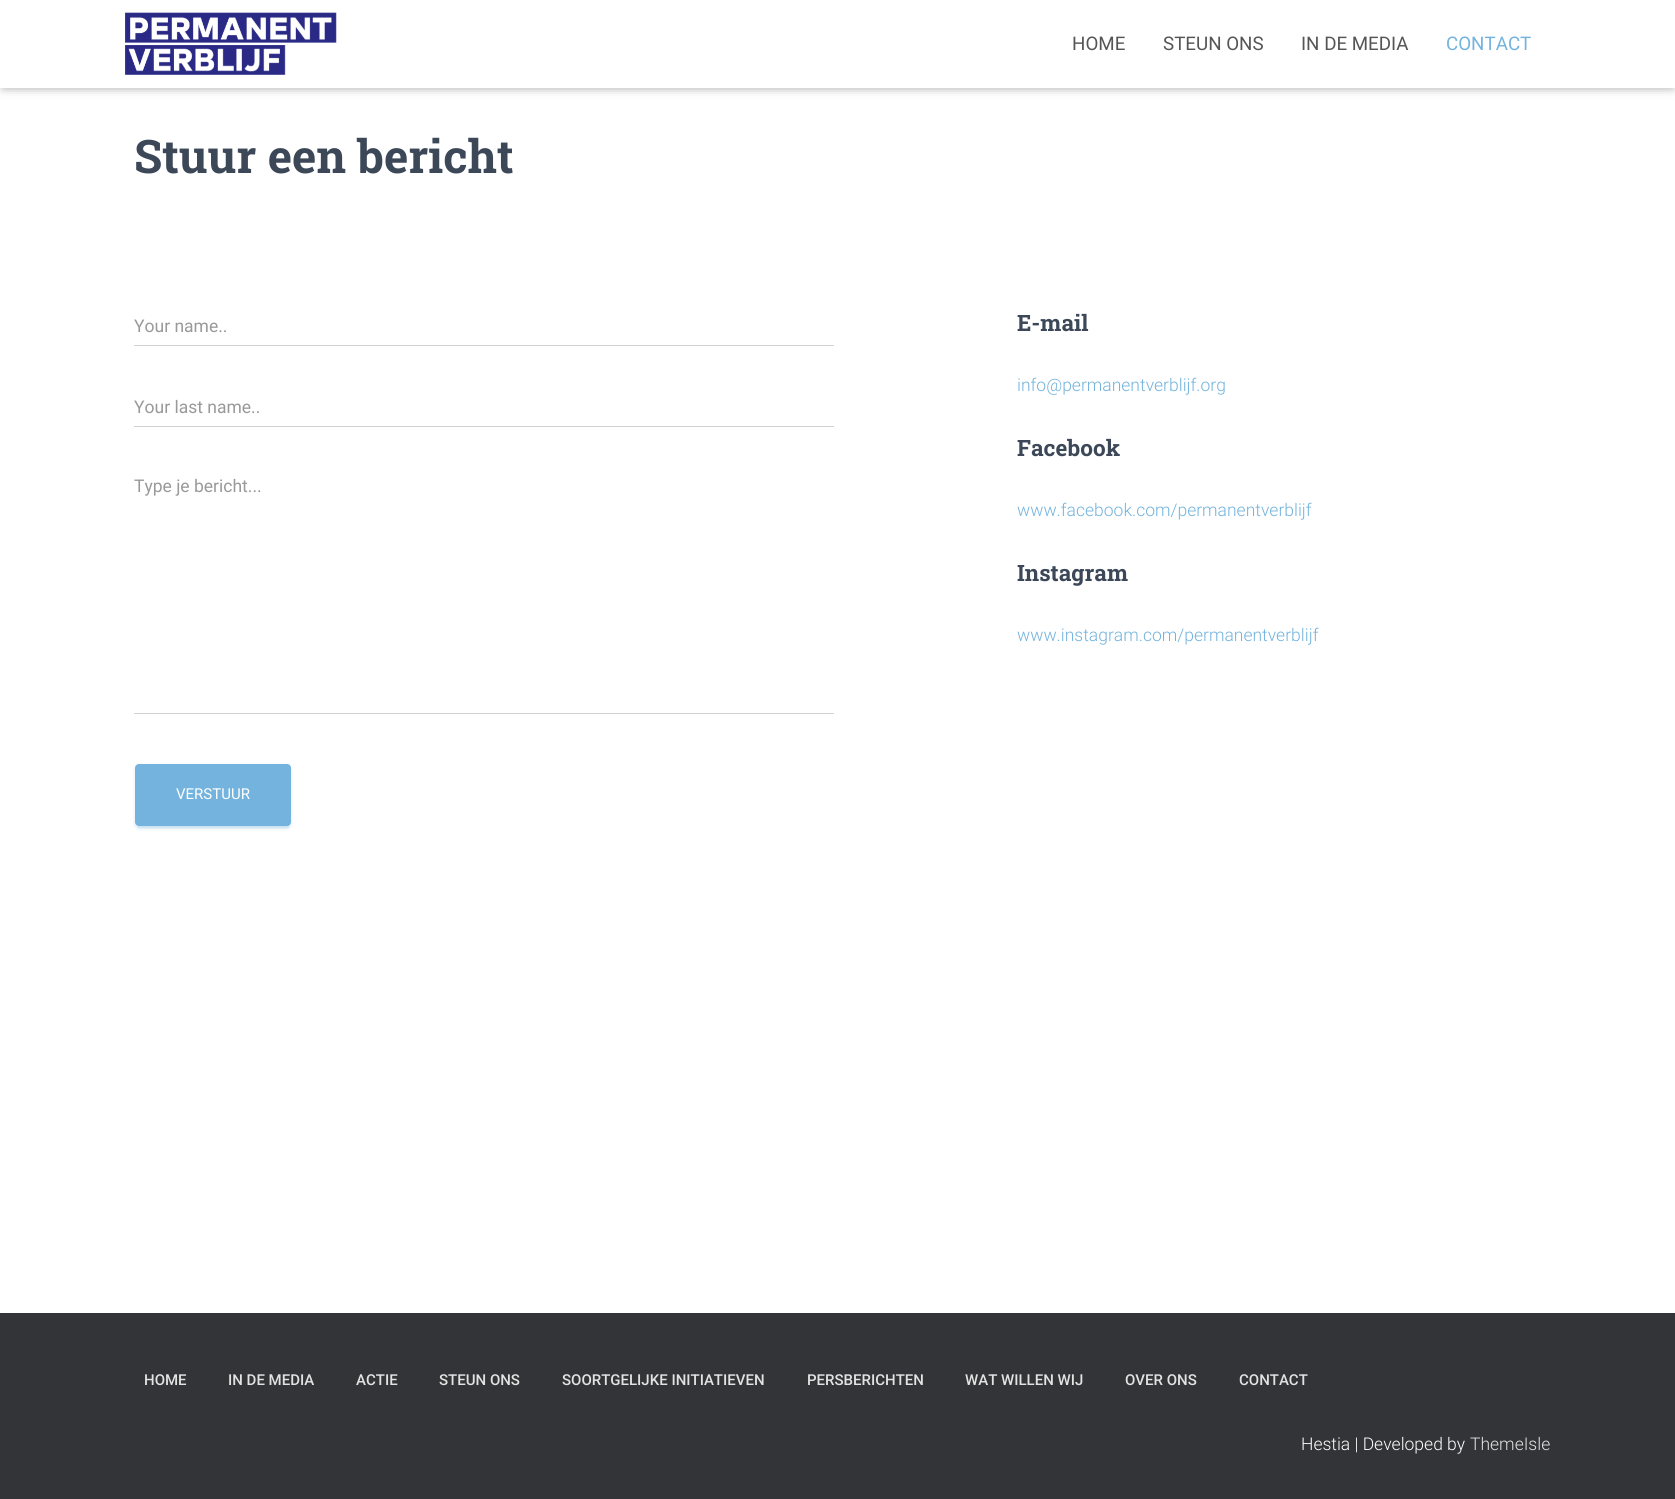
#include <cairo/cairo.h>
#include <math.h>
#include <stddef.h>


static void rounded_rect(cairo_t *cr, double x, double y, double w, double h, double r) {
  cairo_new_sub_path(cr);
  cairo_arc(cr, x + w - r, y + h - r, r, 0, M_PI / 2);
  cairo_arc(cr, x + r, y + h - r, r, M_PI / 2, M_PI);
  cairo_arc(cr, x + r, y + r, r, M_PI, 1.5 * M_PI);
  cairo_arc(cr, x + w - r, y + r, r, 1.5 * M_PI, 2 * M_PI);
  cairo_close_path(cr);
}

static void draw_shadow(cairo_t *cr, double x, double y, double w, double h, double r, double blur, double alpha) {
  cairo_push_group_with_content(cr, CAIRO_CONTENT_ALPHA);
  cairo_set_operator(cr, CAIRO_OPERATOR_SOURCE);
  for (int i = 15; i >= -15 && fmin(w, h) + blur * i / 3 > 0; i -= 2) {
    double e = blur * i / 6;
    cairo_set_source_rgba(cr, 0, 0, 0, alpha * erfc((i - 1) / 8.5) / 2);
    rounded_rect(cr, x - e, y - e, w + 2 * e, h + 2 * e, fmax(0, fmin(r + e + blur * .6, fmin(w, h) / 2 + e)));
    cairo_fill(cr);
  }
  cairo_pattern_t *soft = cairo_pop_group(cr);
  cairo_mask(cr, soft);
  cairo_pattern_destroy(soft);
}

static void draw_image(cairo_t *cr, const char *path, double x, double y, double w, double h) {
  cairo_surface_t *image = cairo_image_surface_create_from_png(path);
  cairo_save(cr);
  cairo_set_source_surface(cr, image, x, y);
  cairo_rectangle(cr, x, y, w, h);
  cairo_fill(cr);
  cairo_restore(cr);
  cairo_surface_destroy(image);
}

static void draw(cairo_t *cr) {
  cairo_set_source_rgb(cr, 50 / 255.0, 52 / 255.0, 55 / 255.0);
  cairo_paint(cr);
  cairo_set_source_rgb(cr, 1, 1, 1);
  cairo_rectangle(cr, 0, 88, 1675, 1225);
  cairo_fill(cr);
  cairo_set_source_rgb(cr, 0, 0, 0);
  draw_shadow(cr, 3, 8, 1670, 82, 0, 3, 0.1);
  draw_shadow(cr, 0, 1, 1675, 88, 0, 6, 0.12);
  draw_shadow(cr, 8, 9, 1660, 72, 0, 6, 0.42);
  cairo_set_source_rgb(cr, 1, 1, 1);
  cairo_rectangle(cr, 0, 0, 1675, 88);
  cairo_fill(cr);
  draw_image(cr, "images/1.png", 125, 12, 212, 63);
  cairo_set_source_rgb(cr, 210 / 255.0, 210 / 255.0, 210 / 255.0);
  cairo_rectangle(cr, 134, 345, 700, 1);
  cairo_fill(cr);
  cairo_rectangle(cr, 134, 426, 700, 1);
  cairo_fill(cr);
  cairo_rectangle(cr, 134, 713, 700, 1);
  cairo_fill(cr);
  cairo_set_source_rgb(cr, 115 / 255.0, 179 / 255.0, 221 / 255.0);
  draw_shadow(cr, 135, 765, 156, 63, 4, 3, 0.12);
  draw_shadow(cr, 138, 770, 151, 58, 1, 0.5, 0.2);
  draw_shadow(cr, 135, 766, 156, 63, 4, 1, 0.14);
  cairo_set_source_rgb(cr, 115 / 255.0, 179 / 255.0, 221 / 255.0);
  rounded_rect(cr, 135, 764, 156, 62, 4);
  cairo_fill(cr);
  cairo_select_font_face(cr, "Roboto", CAIRO_FONT_SLANT_NORMAL, CAIRO_FONT_WEIGHT_NORMAL);
  cairo_set_font_size(cr, 18.75);
  cairo_set_source_rgb(cr, 85 / 255.0, 85 / 255.0, 85 / 255.0);
  cairo_move_to(cr, 1072, 50);
  cairo_show_text(cr, "HOME");
  cairo_move_to(cr, 1163, 50);
  cairo_show_text(cr, "STEUN ONS");
  cairo_move_to(cr, 1301, 50);
  cairo_show_text(cr, "IN DE MEDIA");
  cairo_set_source_rgb(cr, 115 / 255.0, 179 / 255.0, 221 / 255.0);
  cairo_move_to(cr, 1446, 50);
  cairo_show_text(cr, "CONTACT");
  cairo_select_font_face(cr, "Roboto Slab", CAIRO_FONT_SLANT_NORMAL, CAIRO_FONT_WEIGHT_BOLD);
  cairo_set_font_size(cr, 46.25);
  cairo_set_source_rgb(cr, 60 / 255.0, 72 / 255.0, 88 / 255.0);
  cairo_move_to(cr, 134, 173);
  cairo_show_text(cr, "Stuur een bericht");
  cairo_select_font_face(cr, "Roboto", CAIRO_FONT_SLANT_NORMAL, CAIRO_FONT_WEIGHT_NORMAL);
  cairo_set_font_size(cr, 17.5);
  cairo_set_source_rgb(cr, 153 / 255.0, 153 / 255.0, 153 / 255.0);
  cairo_move_to(cr, 134, 332);
  cairo_show_text(cr, "Your name..");
  cairo_move_to(cr, 134, 413);
  cairo_show_text(cr, "Your last name..");
  cairo_move_to(cr, 134, 492);
  cairo_show_text(cr, "Type je bericht...");
  cairo_set_font_size(cr, 15);
  cairo_set_source_rgb(cr, 1, 1, 1);
  cairo_move_to(cr, 176, 799);
  cairo_show_text(cr, "VERSTUUR");
  cairo_select_font_face(cr, "Roboto Slab", CAIRO_FONT_SLANT_NORMAL, CAIRO_FONT_WEIGHT_BOLD);
  cairo_set_font_size(cr, 22.5);
  cairo_set_source_rgb(cr, 60 / 255.0, 72 / 255.0, 88 / 255.0);
  cairo_move_to(cr, 1017, 331);
  cairo_show_text(cr, "E-mail");
  cairo_select_font_face(cr, "Roboto Light", CAIRO_FONT_SLANT_NORMAL, CAIRO_FONT_WEIGHT_NORMAL);
  cairo_set_font_size(cr, 17.5);
  cairo_set_source_rgb(cr, 115 / 255.0, 179 / 255.0, 221 / 255.0);
  cairo_move_to(cr, 1017, 391);
  cairo_show_text(cr, "info@permanentverblijf.org");
  cairo_select_font_face(cr, "Roboto Slab", CAIRO_FONT_SLANT_NORMAL, CAIRO_FONT_WEIGHT_BOLD);
  cairo_set_font_size(cr, 22.5);
  cairo_set_source_rgb(cr, 60 / 255.0, 72 / 255.0, 88 / 255.0);
  cairo_move_to(cr, 1017, 456);
  cairo_show_text(cr, "Facebook");
  cairo_select_font_face(cr, "Roboto Light", CAIRO_FONT_SLANT_NORMAL, CAIRO_FONT_WEIGHT_NORMAL);
  cairo_set_font_size(cr, 17.5);
  cairo_set_source_rgb(cr, 115 / 255.0, 179 / 255.0, 221 / 255.0);
  cairo_move_to(cr, 1017, 516);
  cairo_show_text(cr, "www.facebook.com/permanentverblijf");
  cairo_select_font_face(cr, "Roboto Slab", CAIRO_FONT_SLANT_NORMAL, CAIRO_FONT_WEIGHT_BOLD);
  cairo_set_font_size(cr, 22.5);
  cairo_set_source_rgb(cr, 60 / 255.0, 72 / 255.0, 88 / 255.0);
  cairo_move_to(cr, 1017, 581);
  cairo_show_text(cr, "Instagram");
  cairo_select_font_face(cr, "Roboto Light", CAIRO_FONT_SLANT_NORMAL, CAIRO_FONT_WEIGHT_NORMAL);
  cairo_set_font_size(cr, 17.5);
  cairo_set_source_rgb(cr, 115 / 255.0, 179 / 255.0, 221 / 255.0);
  cairo_move_to(cr, 1017, 641);
  cairo_show_text(cr, "www.instagram.com/permanentverblijf");
  cairo_select_font_face(cr, "Roboto Medium", CAIRO_FONT_SLANT_NORMAL, CAIRO_FONT_WEIGHT_NORMAL);
  cairo_set_font_size(cr, 15);
  cairo_set_source_rgb(cr, 226 / 255.0, 227 / 255.0, 227 / 255.0);
  cairo_move_to(cr, 144, 1385);
  cairo_show_text(cr, "HOME");
  cairo_move_to(cr, 228, 1385);
  cairo_show_text(cr, "IN DE MEDIA");
  cairo_move_to(cr, 356, 1385);
  cairo_show_text(cr, "ACTIE");
  cairo_move_to(cr, 439, 1385);
  cairo_show_text(cr, "STEUN ONS");
  cairo_move_to(cr, 562, 1385);
  cairo_show_text(cr, "SOORTGELIJKE INITIATIEVEN");
  cairo_move_to(cr, 807, 1385);
  cairo_show_text(cr, "PERSBERICHTEN");
  cairo_move_to(cr, 965, 1385);
  cairo_show_text(cr, "WAT WILLEN WIJ");
  cairo_move_to(cr, 1125, 1385);
  cairo_show_text(cr, "OVER ONS");
  cairo_move_to(cr, 1239, 1385);
  cairo_show_text(cr, "CONTACT");
  cairo_select_font_face(cr, "Roboto Light", CAIRO_FONT_SLANT_NORMAL, CAIRO_FONT_WEIGHT_NORMAL);
  cairo_set_font_size(cr, 17.5);
  cairo_set_source_rgb(cr, 1, 1, 1);
  cairo_move_to(cr, 1301, 1450);
  cairo_show_text(cr, "Hestia | Developed by");
  cairo_set_source_rgb(cr, 226 / 255.0, 227 / 255.0, 227 / 255.0);
  cairo_move_to(cr, 1470, 1450);
  cairo_show_text(cr, "ThemeIsle");
}

int main(void) {
  cairo_surface_t *surface = cairo_image_surface_create(CAIRO_FORMAT_RGB24, 1675, 1499);
  cairo_t *cr = cairo_create(surface);
  cairo_font_options_t *options = cairo_font_options_create();
  cairo_font_options_set_hint_metrics(options, CAIRO_HINT_METRICS_OFF);
  cairo_font_options_set_hint_style(options, CAIRO_HINT_STYLE_NONE);
  cairo_set_font_options(cr, options);
  cairo_set_miter_limit(cr, 4);
  draw(cr);
  cairo_surface_write_to_png(surface, "out.png");
  cairo_font_options_destroy(options);
  cairo_destroy(cr);
  cairo_surface_destroy(surface);
  return 0;
}
